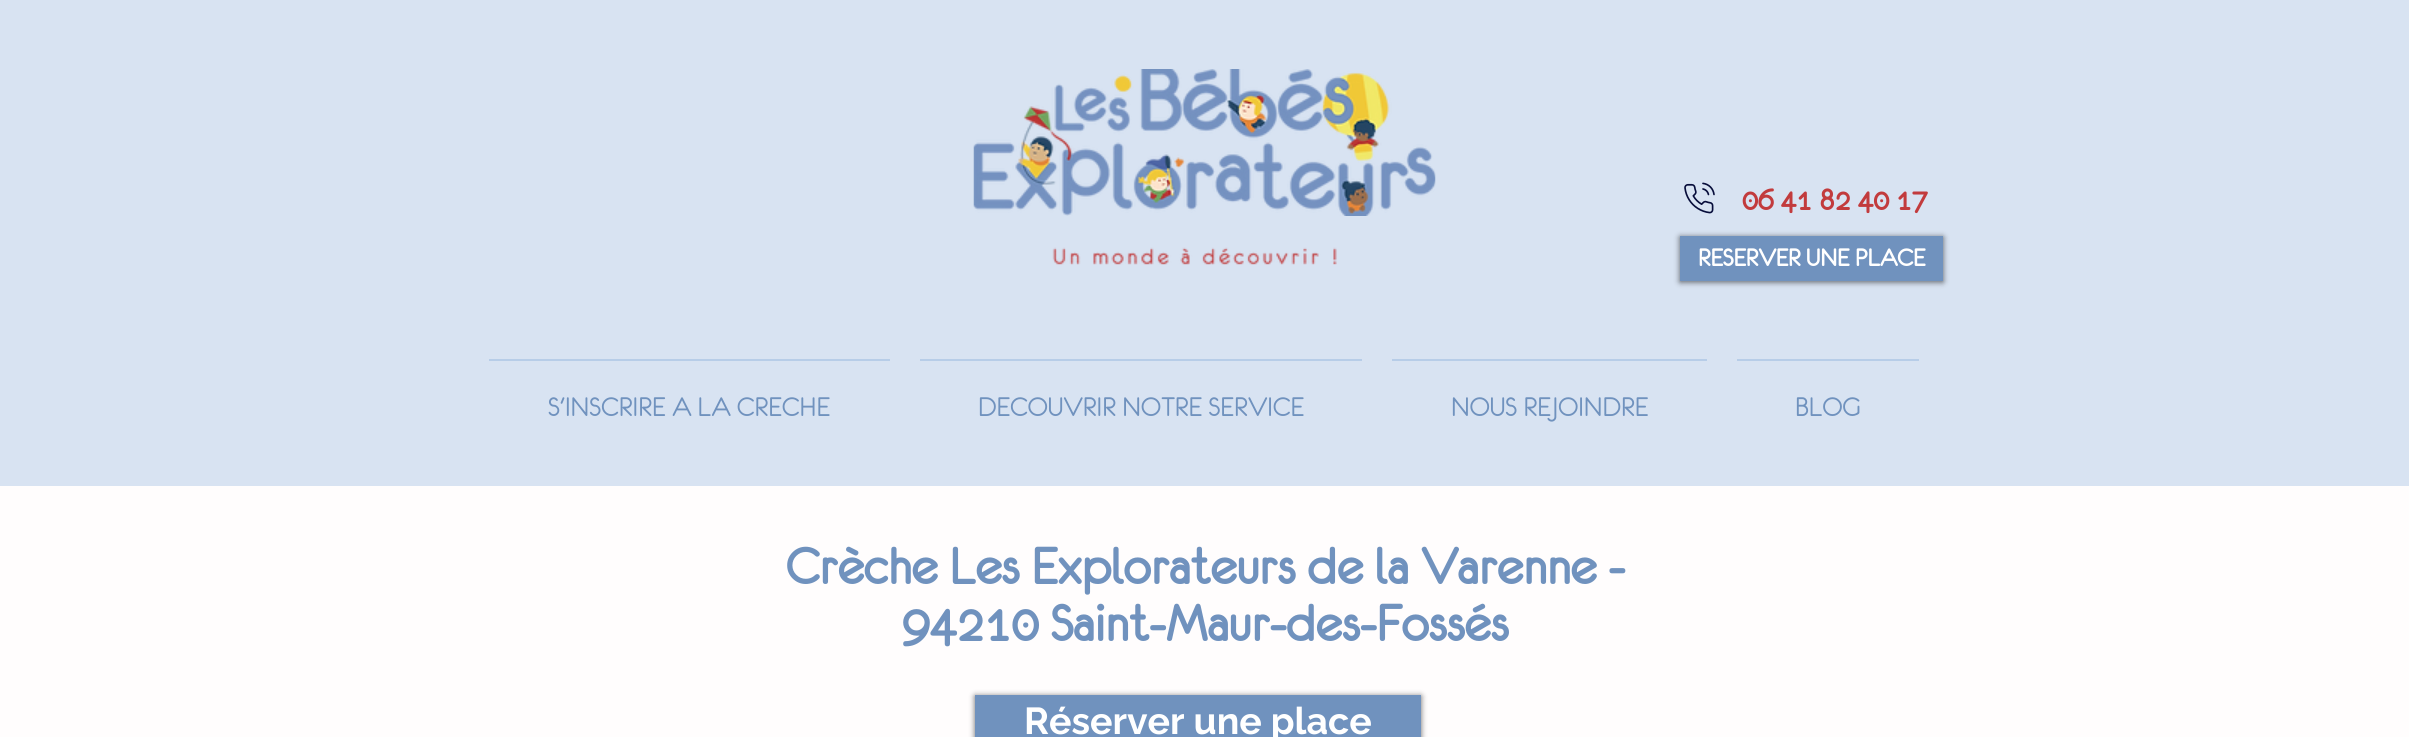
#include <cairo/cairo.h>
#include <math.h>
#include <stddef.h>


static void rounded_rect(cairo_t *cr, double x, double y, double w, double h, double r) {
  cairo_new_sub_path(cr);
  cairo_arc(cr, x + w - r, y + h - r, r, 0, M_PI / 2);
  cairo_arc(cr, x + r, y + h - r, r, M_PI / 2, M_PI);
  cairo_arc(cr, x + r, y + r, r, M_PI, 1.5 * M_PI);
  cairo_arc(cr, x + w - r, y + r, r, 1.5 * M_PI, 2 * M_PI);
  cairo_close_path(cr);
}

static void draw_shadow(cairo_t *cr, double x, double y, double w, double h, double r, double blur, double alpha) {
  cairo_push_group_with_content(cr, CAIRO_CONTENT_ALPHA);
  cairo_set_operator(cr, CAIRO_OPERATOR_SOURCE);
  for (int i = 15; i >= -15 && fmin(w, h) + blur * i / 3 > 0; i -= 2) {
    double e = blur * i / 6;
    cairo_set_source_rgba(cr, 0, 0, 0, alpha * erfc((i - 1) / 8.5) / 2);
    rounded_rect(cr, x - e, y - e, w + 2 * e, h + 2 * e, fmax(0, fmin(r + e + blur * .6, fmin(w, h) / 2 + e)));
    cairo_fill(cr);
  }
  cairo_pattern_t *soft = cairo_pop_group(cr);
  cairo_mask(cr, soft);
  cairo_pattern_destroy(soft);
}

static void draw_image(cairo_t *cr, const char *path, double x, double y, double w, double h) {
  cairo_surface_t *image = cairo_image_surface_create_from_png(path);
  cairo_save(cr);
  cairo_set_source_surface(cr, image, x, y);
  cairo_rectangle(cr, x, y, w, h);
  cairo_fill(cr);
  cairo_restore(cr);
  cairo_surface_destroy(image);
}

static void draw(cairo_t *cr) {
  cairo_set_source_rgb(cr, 1, 253 / 255.0, 253 / 255.0);
  cairo_paint(cr);
  cairo_set_source_rgb(cr, 216 / 255.0, 227 / 255.0, 242 / 255.0);
  cairo_rectangle(cr, 0, 0, 2409, 486);
  cairo_fill(cr);
  draw_image(cr, "images/1.png", 973, 69, 463, 147);
  draw_image(cr, "images/2.png", 1684, 182, 31, 32);
  draw_image(cr, "images/3.png", 1052, 247, 285, 18);
  cairo_set_source_rgb(cr, 0, 0, 0);
  draw_shadow(cr, 1680, 237, 263, 45, 0, 3, 0.6);
  cairo_set_source_rgb(cr, 112 / 255.0, 146 / 255.0, 190 / 255.0);
  cairo_rectangle(cr, 1680, 236, 263, 45);
  cairo_fill(cr);
  cairo_set_source_rgb(cr, 183 / 255.0, 205 / 255.0, 232 / 255.0);
  cairo_rectangle(cr, 489, 359, 401, 2);
  cairo_fill(cr);
  cairo_rectangle(cr, 920, 359, 442, 2);
  cairo_fill(cr);
  cairo_rectangle(cr, 1392, 359, 315, 2);
  cairo_fill(cr);
  cairo_rectangle(cr, 1737, 359, 182, 2);
  cairo_fill(cr);
  cairo_set_source_rgb(cr, 0, 0, 0);
  draw_shadow(cr, 975, 696, 446, 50, 0, 3, 0.6);
  cairo_set_source_rgb(cr, 112 / 255.0, 146 / 255.0, 190 / 255.0);
  cairo_rectangle(cr, 975, 695, 446, 42);
  cairo_fill(cr);
  cairo_select_font_face(cr, "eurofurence", CAIRO_FONT_SLANT_NORMAL, CAIRO_FONT_WEIGHT_BOLD);
  cairo_set_font_size(cr, 33);
  cairo_set_source_rgb(cr, 194 / 255.0, 59 / 255.0, 61 / 255.0);
  cairo_move_to(cr, 1742, 210);
  cairo_show_text(cr, "06 41 82 40 17");
  cairo_set_font_size(cr, 27);
  cairo_set_source_rgb(cr, 1, 1, 1);
  cairo_move_to(cr, 1698, 266);
  cairo_show_text(cr, "RESERVER UNE PLACE");
  cairo_select_font_face(cr, "eurofurence", CAIRO_FONT_SLANT_NORMAL, CAIRO_FONT_WEIGHT_NORMAL);
  cairo_set_font_size(cr, 30);
  cairo_set_source_rgb(cr, 112 / 255.0, 146 / 255.0, 190 / 255.0);
  cairo_move_to(cr, 548, 416);
  cairo_show_text(cr, "S'INSCRIRE A LA CRECHE");
  cairo_move_to(cr, 978, 416);
  cairo_show_text(cr, "DECOUVRIR NOTRE SERVICE");
  cairo_move_to(cr, 1451, 416);
  cairo_show_text(cr, "NOUS REJOINDRE");
  cairo_move_to(cr, 1795, 416);
  cairo_show_text(cr, "BLOG");
  cairo_select_font_face(cr, "eurofurence", CAIRO_FONT_SLANT_NORMAL, CAIRO_FONT_WEIGHT_BOLD);
  cairo_set_font_size(cr, 57);
  cairo_move_to(cr, 786, 584);
  cairo_show_text(cr, "Crèche Les Explorateurs de la Varenne -");
  cairo_move_to(cr, 902, 641);
  cairo_show_text(cr, "94210 Saint-Maur-des-Fossés");
  cairo_select_font_face(cr, "Raleway", CAIRO_FONT_SLANT_NORMAL, CAIRO_FONT_WEIGHT_BOLD);
  cairo_set_font_size(cr, 37.5);
  cairo_set_source_rgb(cr, 1, 1, 1);
  cairo_move_to(cr, 1024, 734);
  cairo_show_text(cr, "Réserver une place");
}

int main(void) {
  cairo_surface_t *surface = cairo_image_surface_create(CAIRO_FORMAT_RGB24, 2409, 737);
  cairo_t *cr = cairo_create(surface);
  cairo_font_options_t *options = cairo_font_options_create();
  cairo_font_options_set_hint_metrics(options, CAIRO_HINT_METRICS_OFF);
  cairo_font_options_set_hint_style(options, CAIRO_HINT_STYLE_NONE);
  cairo_set_font_options(cr, options);
  cairo_set_miter_limit(cr, 4);
  draw(cr);
  cairo_surface_write_to_png(surface, "out.png");
  cairo_font_options_destroy(options);
  cairo_destroy(cr);
  cairo_surface_destroy(surface);
  return 0;
}
